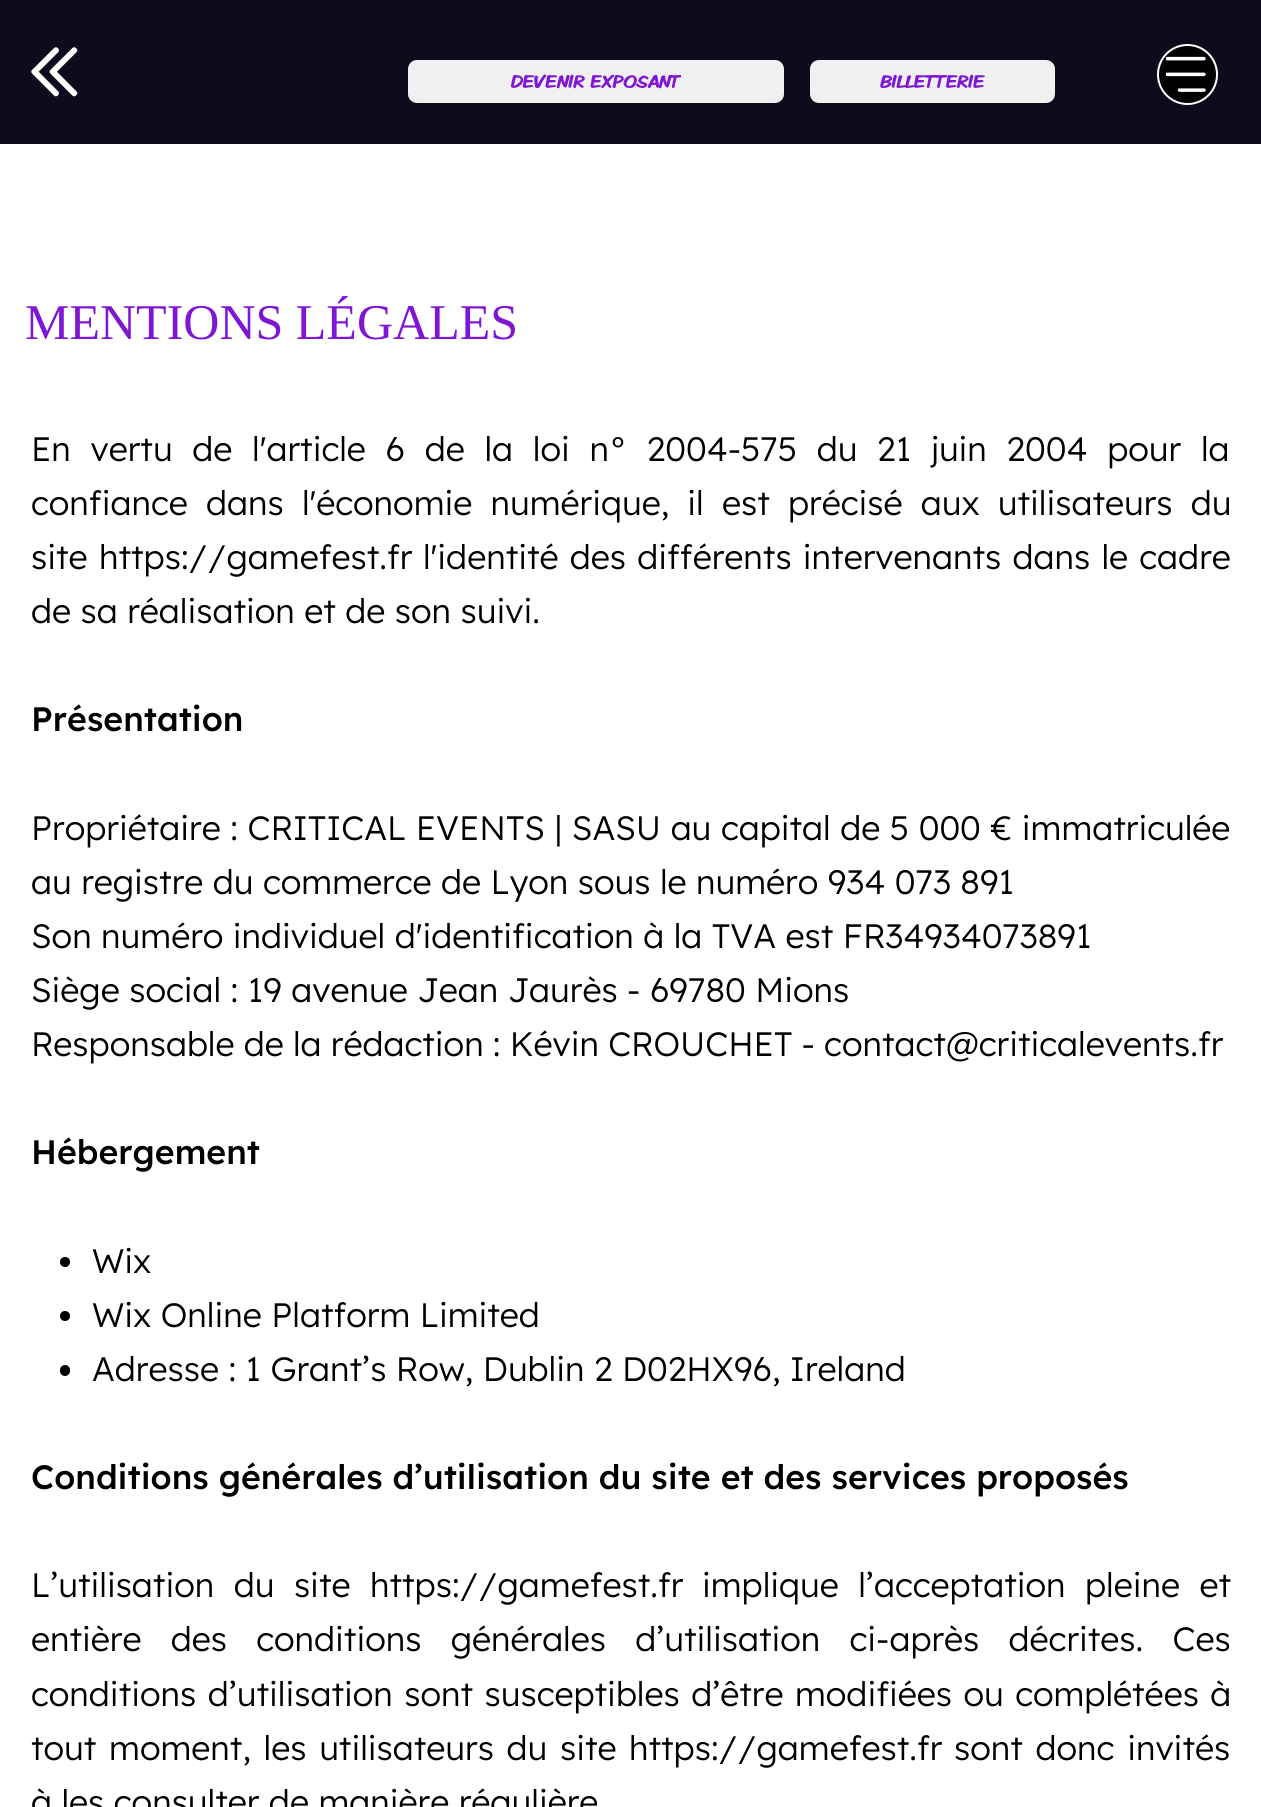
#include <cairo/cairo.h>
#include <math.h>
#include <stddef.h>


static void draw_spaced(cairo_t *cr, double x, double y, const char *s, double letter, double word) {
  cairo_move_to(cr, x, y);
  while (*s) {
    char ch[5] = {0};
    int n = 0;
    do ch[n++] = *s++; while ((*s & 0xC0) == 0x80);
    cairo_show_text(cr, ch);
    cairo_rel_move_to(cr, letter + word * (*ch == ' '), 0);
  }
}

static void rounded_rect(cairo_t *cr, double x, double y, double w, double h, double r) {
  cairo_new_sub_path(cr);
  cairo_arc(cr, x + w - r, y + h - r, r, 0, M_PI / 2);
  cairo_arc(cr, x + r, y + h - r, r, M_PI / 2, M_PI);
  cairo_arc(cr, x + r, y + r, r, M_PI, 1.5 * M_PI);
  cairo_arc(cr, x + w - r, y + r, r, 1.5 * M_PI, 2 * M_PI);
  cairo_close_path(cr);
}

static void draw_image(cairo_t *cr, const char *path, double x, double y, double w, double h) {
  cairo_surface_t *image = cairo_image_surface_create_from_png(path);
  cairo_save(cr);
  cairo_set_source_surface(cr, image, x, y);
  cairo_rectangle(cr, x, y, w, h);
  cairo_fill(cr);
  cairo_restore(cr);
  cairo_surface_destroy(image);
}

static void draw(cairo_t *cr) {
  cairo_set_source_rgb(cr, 1, 1, 1);
  cairo_paint(cr);
  cairo_set_source_rgb(cr, 15 / 255.0, 11 / 255.0, 28 / 255.0);
  cairo_rectangle(cr, 0, 0, 1261, 144);
  cairo_fill(cr);
  draw_image(cr, "images/1.png", 31, 47, 47, 50);
  cairo_set_source_rgb(cr, 240 / 255.0, 240 / 255.0, 240 / 255.0);
  rounded_rect(cr, 408, 60, 376, 43, 9);
  cairo_fill(cr);
  rounded_rect(cr, 810, 60, 245, 43, 9);
  cairo_fill(cr);
  cairo_set_source_rgb(cr, 0, 0, 0);
  cairo_arc(cr, 1187.5, 74.5, 29.5, 0, 2 * M_PI);
  cairo_fill_preserve(cr);
  cairo_set_source_rgb(cr, 1, 1, 1);
  cairo_stroke(cr);
  draw_image(cr, "images/2.png", 1166, 56, 40, 36);
  cairo_set_source_rgb(cr, 0, 0, 0);
  cairo_arc(cr, 65, 1262, 5, 0, 2 * M_PI);
  cairo_fill(cr);
  cairo_arc(cr, 65, 1316, 5, 0, 2 * M_PI);
  cairo_fill(cr);
  rounded_rect(cr, 60, 1365, 10, 11, 5);
  cairo_fill(cr);
  cairo_save(cr);
  cairo_rectangle(cr, 511, 70, 170, 25);
  cairo_clip(cr);
  cairo_select_font_face(cr, "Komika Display", CAIRO_FONT_SLANT_NORMAL, CAIRO_FONT_WEIGHT_BOLD);
  cairo_set_font_size(cr, 17.5);
  cairo_set_source_rgb(cr, 126 / 255.0, 22 / 255.0, 211 / 255.0);
  cairo_move_to(cr, 511, 87);
  cairo_show_text(cr, "DEVENIR EXPOSANT");
  cairo_restore(cr);
  cairo_select_font_face(cr, "Komika Display", CAIRO_FONT_SLANT_NORMAL, CAIRO_FONT_WEIGHT_BOLD);
  cairo_set_font_size(cr, 17.5);
  cairo_set_source_rgb(cr, 126 / 255.0, 22 / 255.0, 211 / 255.0);
  cairo_move_to(cr, 880, 87);
  cairo_show_text(cr, "BILLETTERIE");
  cairo_select_font_face(cr, "Liberation Serif", CAIRO_FONT_SLANT_NORMAL, CAIRO_FONT_WEIGHT_NORMAL);
  cairo_set_font_size(cr, 50);
  cairo_move_to(cr, 25, 339);
  cairo_show_text(cr, "MENTIONS LÉGALES");
  cairo_select_font_face(cr, "Lexend Light", CAIRO_FONT_SLANT_NORMAL, CAIRO_FONT_WEIGHT_NORMAL);
  cairo_set_font_size(cr, 33.85);
  cairo_set_source_rgb(cr, 0, 0, 0);
  draw_spaced(cr, 31, 461, "En vertu de l'article 6 de la loi n° 2004-575 du 21 juin 2004 pour la", 0, 10.25);
  draw_spaced(cr, 31, 515, "confiance dans l'économie numérique, il est précisé aux utilisateurs du", 0, 8.75);
  cairo_move_to(cr, 31, 569);
  cairo_show_text(cr, "site");
  cairo_move_to(cr, 99, 569);
  cairo_show_text(cr, "https://gamefest.fr");
  draw_spaced(cr, 423, 569, "l'identité des différents intervenants dans le cadre", 0, 1.75);
  cairo_move_to(cr, 31, 623);
  cairo_show_text(cr, "de sa réalisation et de son suivi.");
  cairo_select_font_face(cr, "Lexend Medium", CAIRO_FONT_SLANT_NORMAL, CAIRO_FONT_WEIGHT_NORMAL);
  cairo_move_to(cr, 31, 731);
  cairo_show_text(cr, "Présentation");
  cairo_select_font_face(cr, "Lexend Light", CAIRO_FONT_SLANT_NORMAL, CAIRO_FONT_WEIGHT_NORMAL);
  draw_spaced(cr, 31, 840, "Propriétaire : CRITICAL EVENTS | SASU au capital de 5 000 € immatriculée", 0, 0.1);
  cairo_move_to(cr, 31, 894);
  cairo_show_text(cr, "au registre du commerce de Lyon sous le numéro 934 073 891");
  cairo_move_to(cr, 31, 948);
  cairo_show_text(cr, "Son numéro individuel d'identification à la TVA est FR34934073891");
  cairo_move_to(cr, 31, 1002);
  cairo_show_text(cr, "Siège social : 19 avenue Jean Jaurès - 69780 Mions");
  draw_spaced(cr, 31, 1056, "Responsable de la rédaction : Kévin CROUCHET - contact@criticalevents.fr", 0, -0.25);
  cairo_select_font_face(cr, "Lexend Medium", CAIRO_FONT_SLANT_NORMAL, CAIRO_FONT_WEIGHT_NORMAL);
  cairo_move_to(cr, 31, 1164);
  cairo_show_text(cr, "Hébergement");
  cairo_select_font_face(cr, "Lexend Light", CAIRO_FONT_SLANT_NORMAL, CAIRO_FONT_WEIGHT_NORMAL);
  cairo_move_to(cr, 92, 1273);
  cairo_show_text(cr, "Wix");
  cairo_move_to(cr, 92, 1327);
  cairo_show_text(cr, "Wix Online Platform Limited");
  cairo_move_to(cr, 92, 1381);
  cairo_show_text(cr, "Adresse : 1 Grant’s Row, Dublin 2 D02HX96, Ireland");
  cairo_select_font_face(cr, "Lexend Medium", CAIRO_FONT_SLANT_NORMAL, CAIRO_FONT_WEIGHT_NORMAL);
  cairo_move_to(cr, 31, 1489);
  cairo_show_text(cr, "Conditions générales d’utilisation du site et des services proposés");
  cairo_select_font_face(cr, "Lexend Light", CAIRO_FONT_SLANT_NORMAL, CAIRO_FONT_WEIGHT_NORMAL);
  draw_spaced(cr, 31, 1597, "L’utilisation du site", 0, 10);
  cairo_move_to(cr, 370, 1597);
  cairo_show_text(cr, "https://gamefest.fr");
  draw_spaced(cr, 702, 1597, "implique l’acceptation pleine et", 0, 10);
  draw_spaced(cr, 31, 1651, "entière des conditions générales d’utilisation ci-après décrites. Ces", 0, 19.75);
  draw_spaced(cr, 31, 1706, "conditions d’utilisation sont susceptibles d’être modifiées ou complétées à", 0, 2);
  draw_spaced(cr, 31, 1760, "tout moment, les utilisateurs du site", 0, 3.25);
  cairo_move_to(cr, 629, 1760);
  cairo_show_text(cr, "https://gamefest.fr");
  draw_spaced(cr, 954, 1760, "sont donc invités", 0, 3.25);
  cairo_move_to(cr, 31, 1814);
  cairo_show_text(cr, "à les consulter de manière régulière");
}

int main(void) {
  cairo_surface_t *surface = cairo_image_surface_create(CAIRO_FORMAT_RGB24, 1261, 1807);
  cairo_t *cr = cairo_create(surface);
  cairo_font_options_t *options = cairo_font_options_create();
  cairo_font_options_set_hint_metrics(options, CAIRO_HINT_METRICS_OFF);
  cairo_font_options_set_hint_style(options, CAIRO_HINT_STYLE_NONE);
  cairo_set_font_options(cr, options);
  cairo_set_miter_limit(cr, 4);
  draw(cr);
  cairo_surface_write_to_png(surface, "out.png");
  cairo_font_options_destroy(options);
  cairo_destroy(cr);
  cairo_surface_destroy(surface);
  return 0;
}
